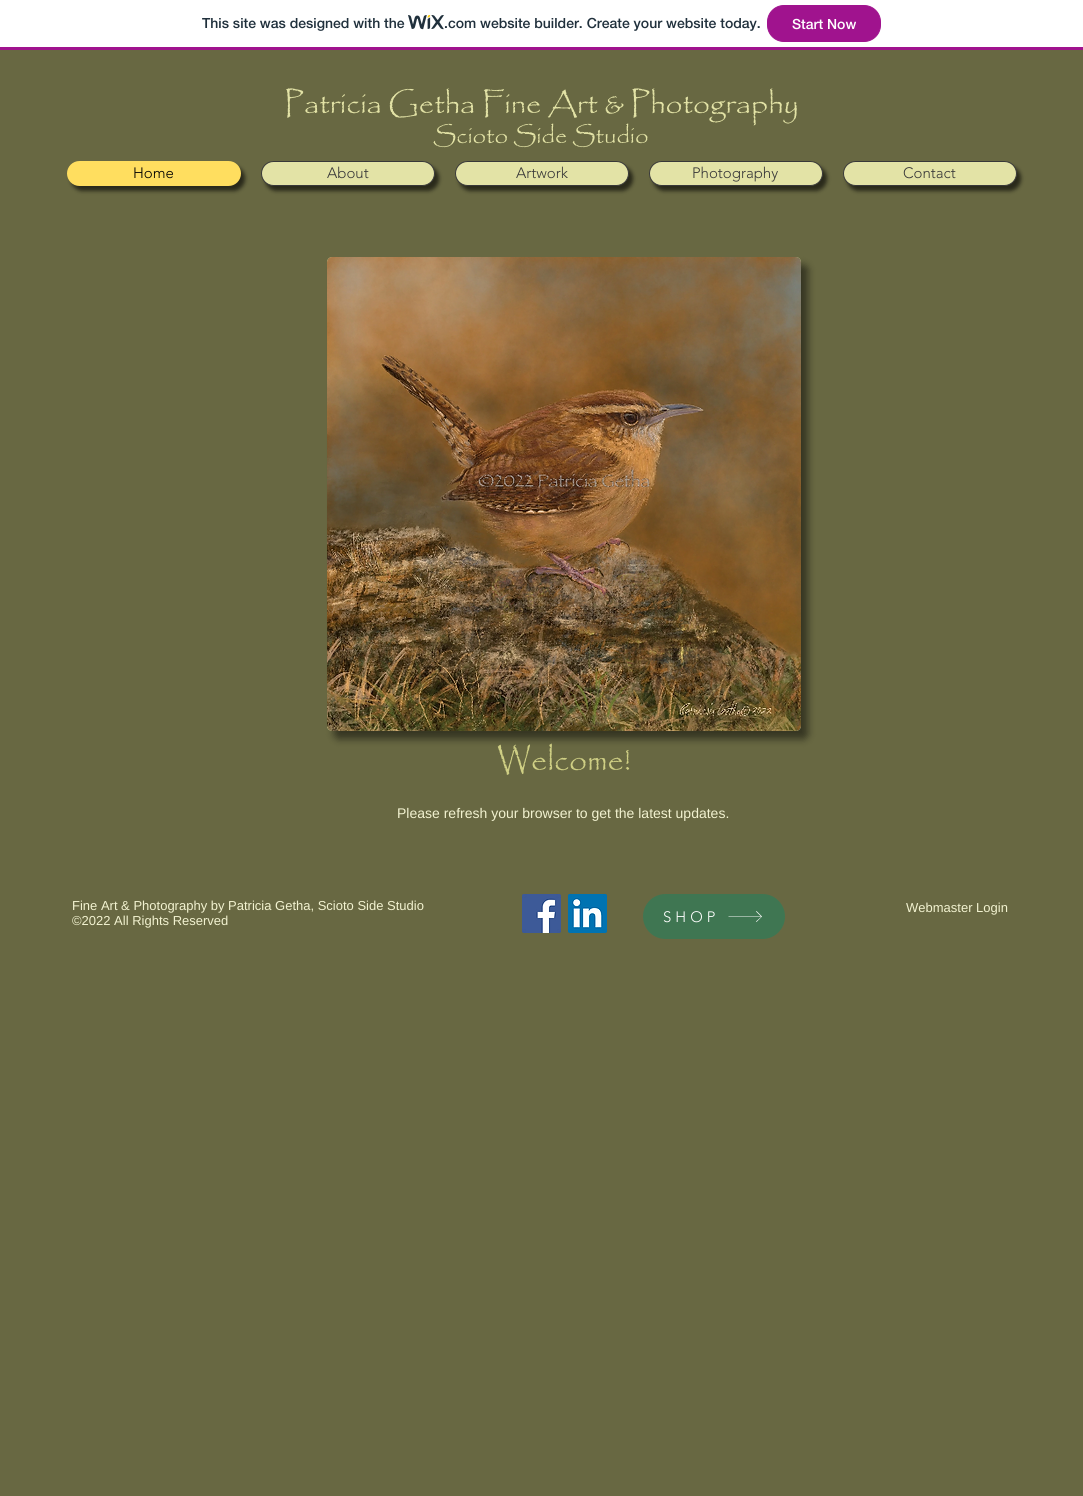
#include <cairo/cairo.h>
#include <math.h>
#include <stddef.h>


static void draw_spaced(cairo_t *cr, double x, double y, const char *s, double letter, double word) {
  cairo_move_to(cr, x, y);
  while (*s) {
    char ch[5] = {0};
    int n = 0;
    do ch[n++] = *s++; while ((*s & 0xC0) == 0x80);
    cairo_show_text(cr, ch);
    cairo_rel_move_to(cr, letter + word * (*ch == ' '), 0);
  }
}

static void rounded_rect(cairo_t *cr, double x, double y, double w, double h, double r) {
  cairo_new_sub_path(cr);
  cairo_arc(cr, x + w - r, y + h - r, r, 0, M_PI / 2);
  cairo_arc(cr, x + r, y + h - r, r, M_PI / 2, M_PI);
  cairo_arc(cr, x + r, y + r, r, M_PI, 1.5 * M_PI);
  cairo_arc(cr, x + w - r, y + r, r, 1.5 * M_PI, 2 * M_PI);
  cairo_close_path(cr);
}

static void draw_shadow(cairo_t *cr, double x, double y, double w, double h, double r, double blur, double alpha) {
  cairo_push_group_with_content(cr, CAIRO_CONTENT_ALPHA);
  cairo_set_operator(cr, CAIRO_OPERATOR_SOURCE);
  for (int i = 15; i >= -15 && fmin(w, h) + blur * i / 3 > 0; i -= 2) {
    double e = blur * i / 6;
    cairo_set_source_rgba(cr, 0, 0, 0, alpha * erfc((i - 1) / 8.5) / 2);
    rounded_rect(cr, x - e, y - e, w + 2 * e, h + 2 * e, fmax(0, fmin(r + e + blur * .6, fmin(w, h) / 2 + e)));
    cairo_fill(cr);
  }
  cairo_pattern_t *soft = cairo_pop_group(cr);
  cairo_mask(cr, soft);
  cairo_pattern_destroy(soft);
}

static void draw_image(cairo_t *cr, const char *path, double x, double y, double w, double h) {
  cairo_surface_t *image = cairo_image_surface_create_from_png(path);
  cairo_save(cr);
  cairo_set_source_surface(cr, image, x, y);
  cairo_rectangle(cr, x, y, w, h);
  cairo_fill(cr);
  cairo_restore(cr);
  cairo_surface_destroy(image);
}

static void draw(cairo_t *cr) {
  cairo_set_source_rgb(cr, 1, 1, 1);
  cairo_paint(cr);
  cairo_set_source_rgb(cr, 160 / 255.0, 19 / 255.0, 142 / 255.0);
  cairo_rectangle(cr, 0, 47, 1083, 3);
  cairo_fill(cr);
  draw_image(cr, "images/1.png", 408, 15, 36, 15);
  rounded_rect(cr, 767.5, 5.5, 113, 36, 16.5);
  cairo_fill_preserve(cr);
  cairo_set_line_width(cr, 1);
  cairo_stroke(cr);
  cairo_set_source_rgb(cr, 104 / 255.0, 104 / 255.0, 66 / 255.0);
  cairo_rectangle(cr, 0, 50, 1083, 1446);
  cairo_fill(cr);
  cairo_set_source_rgb(cr, 0, 0, 0);
  draw_shadow(cr, 71, 166, 174, 25, 12.5, 2, 0.6);
  cairo_set_source_rgb(cr, 1, 222 / 255.0, 95 / 255.0);
  rounded_rect(cr, 67, 161, 174, 25, 12.5);
  cairo_fill(cr);
  cairo_set_source_rgb(cr, 0, 0, 0);
  draw_shadow(cr, 265, 166, 174, 25, 12.5, 2, 0.6);
  cairo_set_source_rgb(cr, 227 / 255.0, 227 / 255.0, 166 / 255.0);
  rounded_rect(cr, 261.5, 161.5, 173, 24, 12);
  cairo_fill_preserve(cr);
  cairo_set_source_rgb(cr, 56 / 255.0, 56 / 255.0, 56 / 255.0);
  cairo_stroke(cr);
  cairo_set_source_rgb(cr, 0, 0, 0);
  draw_shadow(cr, 459, 166, 174, 25, 12.5, 2, 0.6);
  cairo_set_source_rgb(cr, 227 / 255.0, 227 / 255.0, 166 / 255.0);
  rounded_rect(cr, 455.5, 161.5, 173, 24, 12);
  cairo_fill_preserve(cr);
  cairo_set_source_rgb(cr, 56 / 255.0, 56 / 255.0, 56 / 255.0);
  cairo_stroke(cr);
  cairo_set_source_rgb(cr, 0, 0, 0);
  draw_shadow(cr, 653, 166, 174, 25, 12.5, 2, 0.6);
  cairo_set_source_rgb(cr, 227 / 255.0, 227 / 255.0, 166 / 255.0);
  rounded_rect(cr, 649.5, 161.5, 173, 24, 12);
  cairo_fill_preserve(cr);
  cairo_set_source_rgb(cr, 56 / 255.0, 56 / 255.0, 56 / 255.0);
  cairo_stroke(cr);
  cairo_set_source_rgb(cr, 0, 0, 0);
  draw_shadow(cr, 847, 166, 174, 25, 12.5, 2, 0.6);
  cairo_set_source_rgb(cr, 227 / 255.0, 227 / 255.0, 166 / 255.0);
  rounded_rect(cr, 843.5, 161.5, 173, 24, 12);
  cairo_fill_preserve(cr);
  cairo_set_source_rgb(cr, 56 / 255.0, 56 / 255.0, 56 / 255.0);
  cairo_stroke(cr);
  cairo_set_source_rgb(cr, 0, 0, 0);
  draw_shadow(cr, 334, 265, 474, 474, 5, 4, 0.49);
  cairo_set_source_rgba(cr, 227 / 255.0, 227 / 255.0, 166 / 255.0, 0.66);
  rounded_rect(cr, 327, 257, 474, 474, 5);
  cairo_fill(cr);
  draw_image(cr, "images/2.png", 327, 257, 474, 474);
  draw_image(cr, "images/3.png", 522, 894, 39, 39);
  draw_image(cr, "images/4.png", 568, 894, 39, 39);
  cairo_set_source_rgb(cr, 63 / 255.0, 118 / 255.0, 82 / 255.0);
  rounded_rect(cr, 643, 894, 142, 45, 22.5);
  cairo_fill(cr);
  cairo_set_source_rgb(cr, 1, 1, 1);
  cairo_new_path(cr);
  cairo_move_to(cr, 756.5, 911);
  cairo_line_to(cr, 756, 911.5);
  cairo_line_to(cr, 761, 916.5);
  cairo_line_to(cr, 728.5, 916.5);
  cairo_line_to(cr, 728.5, 917);
  cairo_line_to(cr, 761, 917);
  cairo_line_to(cr, 756, 921.5);
  cairo_line_to(cr, 756.5, 922);
  cairo_line_to(cr, 762, 916.5);
  cairo_close_path(cr);
  cairo_fill(cr);
  cairo_select_font_face(cr, "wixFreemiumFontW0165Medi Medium", CAIRO_FONT_SLANT_NORMAL, CAIRO_FONT_WEIGHT_NORMAL);
  cairo_set_font_size(cr, 14);
  cairo_set_source_rgb(cr, 32 / 255.0, 48 / 255.0, 60 / 255.0);
  cairo_move_to(cr, 202, 28);
  cairo_show_text(cr, "This site was designed with the");
  cairo_move_to(cr, 444, 28);
  cairo_show_text(cr, ".com website builder. Create your website today.");
  cairo_set_source_rgb(cr, 1, 1, 1);
  cairo_move_to(cr, 792, 29);
  cairo_show_text(cr, "Start Now");
  cairo_select_font_face(cr, "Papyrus", CAIRO_FONT_SLANT_NORMAL, CAIRO_FONT_WEIGHT_NORMAL);
  cairo_set_font_size(cr, 30);
  cairo_set_source_rgb(cr, 227 / 255.0, 227 / 255.0, 166 / 255.0);
  cairo_move_to(cr, 284, 113);
  cairo_show_text(cr, "Patricia Getha Fine Art & Photography");
  cairo_set_font_size(cr, 24);
  cairo_move_to(cr, 433, 143);
  cairo_show_text(cr, "Scioto Side Studio");
  cairo_select_font_face(cr, "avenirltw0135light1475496 Light", CAIRO_FONT_SLANT_NORMAL, CAIRO_FONT_WEIGHT_NORMAL);
  cairo_set_font_size(cr, 15);
  cairo_set_source_rgb(cr, 0, 0, 0);
  cairo_move_to(cr, 133, 178);
  cairo_show_text(cr, "Home");
  cairo_set_source_rgb(cr, 56 / 255.0, 56 / 255.0, 56 / 255.0);
  cairo_move_to(cr, 327, 178);
  cairo_show_text(cr, "About");
  cairo_move_to(cr, 516, 178);
  cairo_show_text(cr, "Artwork");
  cairo_move_to(cr, 692, 178);
  cairo_show_text(cr, "Photography");
  cairo_move_to(cr, 903, 178);
  cairo_show_text(cr, "Contact");
  cairo_select_font_face(cr, "Papyrus", CAIRO_FONT_SLANT_NORMAL, CAIRO_FONT_WEIGHT_NORMAL);
  cairo_set_font_size(cr, 32);
  cairo_set_source_rgb(cr, 207 / 255.0, 207 / 255.0, 132 / 255.0);
  cairo_move_to(cr, 497, 770);
  cairo_show_text(cr, "Welcome!");
  cairo_select_font_face(cr, "Liberation Sans", CAIRO_FONT_SLANT_NORMAL, CAIRO_FONT_WEIGHT_NORMAL);
  cairo_set_font_size(cr, 14);
  cairo_set_source_rgb(cr, 242 / 255.0, 242 / 255.0, 208 / 255.0);
  cairo_move_to(cr, 397, 818);
  cairo_show_text(cr, "Please refresh your browser to get the latest updates.");
  cairo_set_font_size(cr, 13);
  cairo_move_to(cr, 72, 910);
  cairo_show_text(cr, "Fine Art & Photography by Patricia Getha, Scioto Side Studio");
  cairo_move_to(cr, 72, 925);
  cairo_show_text(cr, "©2022 All Rights Reserved");
  cairo_move_to(cr, 906, 912);
  cairo_show_text(cr, "Webmaster Login");
  cairo_select_font_face(cr, "avenirltw0135light1475496 Light", CAIRO_FONT_SLANT_NORMAL, CAIRO_FONT_WEIGHT_NORMAL);
  cairo_set_font_size(cr, 15);
  cairo_set_source_rgb(cr, 1, 1, 1);
  draw_spaced(cr, 663, 922, "SHOP", 4, 0);
}

int main(void) {
  cairo_surface_t *surface = cairo_image_surface_create(CAIRO_FORMAT_RGB24, 1083, 1496);
  cairo_t *cr = cairo_create(surface);
  cairo_font_options_t *options = cairo_font_options_create();
  cairo_font_options_set_hint_metrics(options, CAIRO_HINT_METRICS_OFF);
  cairo_font_options_set_hint_style(options, CAIRO_HINT_STYLE_NONE);
  cairo_set_font_options(cr, options);
  cairo_set_miter_limit(cr, 4);
  draw(cr);
  cairo_surface_write_to_png(surface, "out.png");
  cairo_font_options_destroy(options);
  cairo_destroy(cr);
  cairo_surface_destroy(surface);
  return 0;
}
